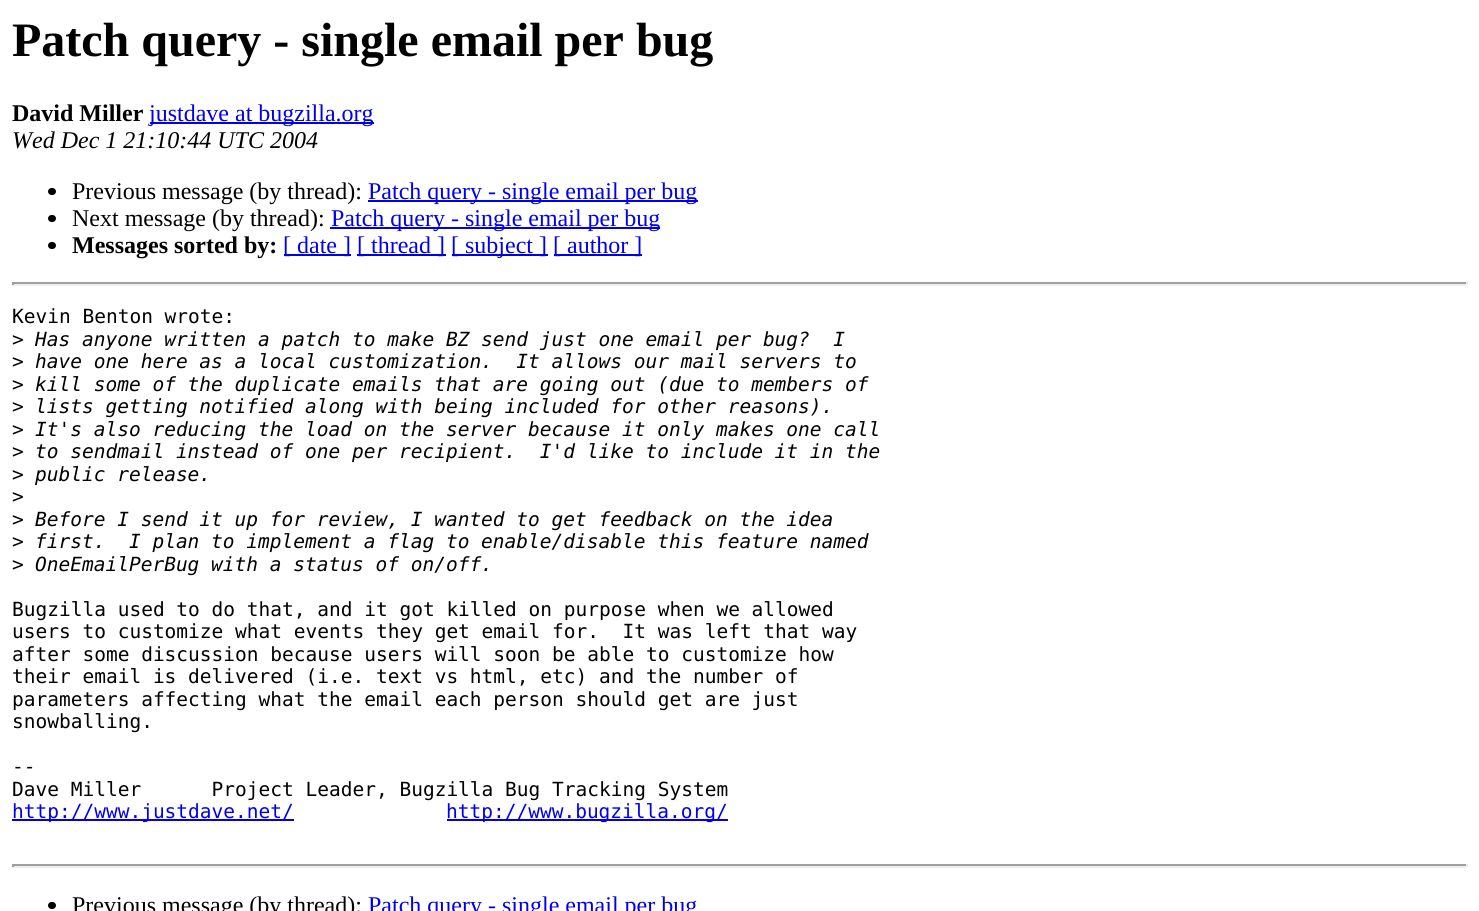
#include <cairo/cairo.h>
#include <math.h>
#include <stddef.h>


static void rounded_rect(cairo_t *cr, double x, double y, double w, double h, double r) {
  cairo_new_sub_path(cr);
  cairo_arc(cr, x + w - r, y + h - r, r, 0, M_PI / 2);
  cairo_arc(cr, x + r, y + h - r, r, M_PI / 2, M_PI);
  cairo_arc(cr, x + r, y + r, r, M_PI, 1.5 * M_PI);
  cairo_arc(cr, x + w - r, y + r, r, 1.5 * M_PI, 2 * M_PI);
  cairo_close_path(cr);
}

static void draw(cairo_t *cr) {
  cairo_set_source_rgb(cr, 1, 1, 1);
  cairo_paint(cr);
  cairo_set_source_rgb(cr, 0, 0, 238 / 255.0);
  cairo_rectangle(cr, 150, 122, 224, 2);
  cairo_fill(cr);
  cairo_set_source_rgb(cr, 0, 0, 0);
  rounded_rect(cr, 48, 188, 8, 7, 3.5);
  cairo_fill(cr);
  cairo_set_source_rgb(cr, 0, 0, 238 / 255.0);
  cairo_rectangle(cr, 368, 200, 330, 2);
  cairo_fill(cr);
  cairo_set_source_rgb(cr, 0, 0, 0);
  rounded_rect(cr, 48, 215, 8, 7, 3.5);
  cairo_fill(cr);
  cairo_set_source_rgb(cr, 0, 0, 238 / 255.0);
  cairo_rectangle(cr, 330, 227, 330, 2);
  cairo_fill(cr);
  cairo_set_source_rgb(cr, 0, 0, 0);
  rounded_rect(cr, 48, 242, 8, 7, 3.5);
  cairo_fill(cr);
  cairo_set_source_rgb(cr, 0, 0, 238 / 255.0);
  cairo_rectangle(cr, 284, 254, 67, 2);
  cairo_fill(cr);
  cairo_rectangle(cr, 357, 254, 89, 2);
  cairo_fill(cr);
  cairo_rectangle(cr, 452, 254, 96, 2);
  cairo_fill(cr);
  cairo_rectangle(cr, 554, 254, 88, 2);
  cairo_fill(cr);
  cairo_set_source_rgb(cr, 159 / 255.0, 159 / 255.0, 159 / 255.0);
  cairo_rectangle(cr, 12, 282, 1455, 2);
  cairo_fill(cr);
  cairo_set_source_rgb(cr, 238 / 255.0, 238 / 255.0, 238 / 255.0);
  cairo_rectangle(cr, 1466, 282, 2, 3);
  cairo_fill(cr);
  cairo_rectangle(cr, 12, 284, 1455, 2);
  cairo_fill(cr);
  cairo_set_source_rgb(cr, 159 / 255.0, 159 / 255.0, 159 / 255.0);
  cairo_rectangle(cr, 12, 282, 2, 3);
  cairo_fill(cr);
  cairo_set_source_rgb(cr, 0, 0, 238 / 255.0);
  cairo_rectangle(cr, 12, 819, 282, 2);
  cairo_fill(cr);
  cairo_rectangle(cr, 447, 819, 281, 2);
  cairo_fill(cr);
  cairo_set_source_rgb(cr, 159 / 255.0, 159 / 255.0, 159 / 255.0);
  cairo_rectangle(cr, 12, 864, 1455, 2);
  cairo_fill(cr);
  cairo_set_source_rgb(cr, 238 / 255.0, 238 / 255.0, 238 / 255.0);
  cairo_rectangle(cr, 1466, 864, 2, 3);
  cairo_fill(cr);
  cairo_rectangle(cr, 12, 866, 1455, 2);
  cairo_fill(cr);
  cairo_set_source_rgb(cr, 159 / 255.0, 159 / 255.0, 159 / 255.0);
  cairo_rectangle(cr, 12, 864, 2, 3);
  cairo_fill(cr);
  cairo_set_source_rgb(cr, 0, 0, 0);
  rounded_rect(cr, 48, 902, 8, 7, 3.5);
  cairo_fill(cr);
  cairo_select_font_face(cr, "Liberation Serif", CAIRO_FONT_SLANT_NORMAL, CAIRO_FONT_WEIGHT_BOLD);
  cairo_set_font_size(cr, 48);
  cairo_move_to(cr, 12, 56);
  cairo_show_text(cr, "Patch query - single email per bug");
  cairo_set_font_size(cr, 24);
  cairo_move_to(cr, 12, 121);
  cairo_show_text(cr, "David Miller");
  cairo_select_font_face(cr, "Liberation Serif", CAIRO_FONT_SLANT_NORMAL, CAIRO_FONT_WEIGHT_NORMAL);
  cairo_set_source_rgb(cr, 0, 0, 238 / 255.0);
  cairo_move_to(cr, 149, 121);
  cairo_show_text(cr, "justdave at bugzilla.org");
  cairo_select_font_face(cr, "Liberation Serif", CAIRO_FONT_SLANT_ITALIC, CAIRO_FONT_WEIGHT_NORMAL);
  cairo_set_source_rgb(cr, 0, 0, 0);
  cairo_move_to(cr, 12, 148);
  cairo_show_text(cr, "Wed Dec 1 21:10:44 UTC 2004");
  cairo_select_font_face(cr, "Liberation Serif", CAIRO_FONT_SLANT_NORMAL, CAIRO_FONT_WEIGHT_NORMAL);
  cairo_move_to(cr, 72, 199);
  cairo_show_text(cr, "Previous message (by thread):");
  cairo_set_source_rgb(cr, 0, 0, 238 / 255.0);
  cairo_move_to(cr, 368, 199);
  cairo_show_text(cr, "Patch query - single email per bug");
  cairo_set_source_rgb(cr, 0, 0, 0);
  cairo_move_to(cr, 72, 226);
  cairo_show_text(cr, "Next message (by thread):");
  cairo_set_source_rgb(cr, 0, 0, 238 / 255.0);
  cairo_move_to(cr, 331, 226);
  cairo_show_text(cr, "Patch query - single email per bug");
  cairo_select_font_face(cr, "Liberation Serif", CAIRO_FONT_SLANT_NORMAL, CAIRO_FONT_WEIGHT_BOLD);
  cairo_set_source_rgb(cr, 0, 0, 0);
  cairo_move_to(cr, 72, 253);
  cairo_show_text(cr, "Messages sorted by:");
  cairo_select_font_face(cr, "Liberation Serif", CAIRO_FONT_SLANT_NORMAL, CAIRO_FONT_WEIGHT_NORMAL);
  cairo_set_source_rgb(cr, 0, 0, 238 / 255.0);
  cairo_move_to(cr, 283, 253);
  cairo_show_text(cr, "[ date ]");
  cairo_move_to(cr, 357, 253);
  cairo_show_text(cr, "[ thread ]");
  cairo_move_to(cr, 451, 253);
  cairo_show_text(cr, "[ subject ]");
  cairo_move_to(cr, 553, 253);
  cairo_show_text(cr, "[ author ]");
  cairo_select_font_face(cr, "DejaVu Sans Mono", CAIRO_FONT_SLANT_NORMAL, CAIRO_FONT_WEIGHT_NORMAL);
  cairo_set_font_size(cr, 19.5);
  cairo_set_source_rgb(cr, 0, 0, 0);
  cairo_move_to(cr, 12, 323);
  cairo_show_text(cr, "Kevin Benton wrote:");
  cairo_move_to(cr, 12, 346);
  cairo_show_text(cr, ">");
  cairo_select_font_face(cr, "DejaVu Sans Mono", CAIRO_FONT_SLANT_ITALIC, CAIRO_FONT_WEIGHT_NORMAL);
  cairo_move_to(cr, 35, 346);
  cairo_show_text(cr, "Has anyone written a patch to make BZ send just one email per bug?  I");
  cairo_select_font_face(cr, "DejaVu Sans Mono", CAIRO_FONT_SLANT_NORMAL, CAIRO_FONT_WEIGHT_NORMAL);
  cairo_move_to(cr, 12, 368);
  cairo_show_text(cr, ">");
  cairo_select_font_face(cr, "DejaVu Sans Mono", CAIRO_FONT_SLANT_ITALIC, CAIRO_FONT_WEIGHT_NORMAL);
  cairo_move_to(cr, 35, 368);
  cairo_show_text(cr, "have one here as a local customization.  It allows our mail servers to");
  cairo_select_font_face(cr, "DejaVu Sans Mono", CAIRO_FONT_SLANT_NORMAL, CAIRO_FONT_WEIGHT_NORMAL);
  cairo_move_to(cr, 12, 391);
  cairo_show_text(cr, ">");
  cairo_select_font_face(cr, "DejaVu Sans Mono", CAIRO_FONT_SLANT_ITALIC, CAIRO_FONT_WEIGHT_NORMAL);
  cairo_move_to(cr, 35, 391);
  cairo_show_text(cr, "kill some of the duplicate emails that are going out (due to members of");
  cairo_select_font_face(cr, "DejaVu Sans Mono", CAIRO_FONT_SLANT_NORMAL, CAIRO_FONT_WEIGHT_NORMAL);
  cairo_move_to(cr, 12, 413);
  cairo_show_text(cr, ">");
  cairo_select_font_face(cr, "DejaVu Sans Mono", CAIRO_FONT_SLANT_ITALIC, CAIRO_FONT_WEIGHT_NORMAL);
  cairo_move_to(cr, 35, 413);
  cairo_show_text(cr, "lists getting notified along with being included for other reasons).");
  cairo_select_font_face(cr, "DejaVu Sans Mono", CAIRO_FONT_SLANT_NORMAL, CAIRO_FONT_WEIGHT_NORMAL);
  cairo_move_to(cr, 12, 436);
  cairo_show_text(cr, ">");
  cairo_select_font_face(cr, "DejaVu Sans Mono", CAIRO_FONT_SLANT_ITALIC, CAIRO_FONT_WEIGHT_NORMAL);
  cairo_move_to(cr, 35, 436);
  cairo_show_text(cr, "It's also reducing the load on the server because it only makes one call");
  cairo_select_font_face(cr, "DejaVu Sans Mono", CAIRO_FONT_SLANT_NORMAL, CAIRO_FONT_WEIGHT_NORMAL);
  cairo_move_to(cr, 12, 458);
  cairo_show_text(cr, ">");
  cairo_select_font_face(cr, "DejaVu Sans Mono", CAIRO_FONT_SLANT_ITALIC, CAIRO_FONT_WEIGHT_NORMAL);
  cairo_move_to(cr, 35, 458);
  cairo_show_text(cr, "to sendmail instead of one per recipient.  I'd like to include it in the");
  cairo_select_font_face(cr, "DejaVu Sans Mono", CAIRO_FONT_SLANT_NORMAL, CAIRO_FONT_WEIGHT_NORMAL);
  cairo_move_to(cr, 12, 481);
  cairo_show_text(cr, ">");
  cairo_select_font_face(cr, "DejaVu Sans Mono", CAIRO_FONT_SLANT_ITALIC, CAIRO_FONT_WEIGHT_NORMAL);
  cairo_move_to(cr, 35, 481);
  cairo_show_text(cr, "public release.");
  cairo_select_font_face(cr, "DejaVu Sans Mono", CAIRO_FONT_SLANT_NORMAL, CAIRO_FONT_WEIGHT_NORMAL);
  cairo_move_to(cr, 12, 503);
  cairo_show_text(cr, ">");
  cairo_move_to(cr, 12, 526);
  cairo_show_text(cr, ">");
  cairo_select_font_face(cr, "DejaVu Sans Mono", CAIRO_FONT_SLANT_ITALIC, CAIRO_FONT_WEIGHT_NORMAL);
  cairo_move_to(cr, 35, 526);
  cairo_show_text(cr, "Before I send it up for review, I wanted to get feedback on the idea");
  cairo_select_font_face(cr, "DejaVu Sans Mono", CAIRO_FONT_SLANT_NORMAL, CAIRO_FONT_WEIGHT_NORMAL);
  cairo_move_to(cr, 12, 548);
  cairo_show_text(cr, ">");
  cairo_select_font_face(cr, "DejaVu Sans Mono", CAIRO_FONT_SLANT_ITALIC, CAIRO_FONT_WEIGHT_NORMAL);
  cairo_move_to(cr, 35, 548);
  cairo_show_text(cr, "first.  I plan to implement a flag to enable/disable this feature named");
  cairo_select_font_face(cr, "DejaVu Sans Mono", CAIRO_FONT_SLANT_NORMAL, CAIRO_FONT_WEIGHT_NORMAL);
  cairo_move_to(cr, 12, 571);
  cairo_show_text(cr, ">");
  cairo_select_font_face(cr, "DejaVu Sans Mono", CAIRO_FONT_SLANT_ITALIC, CAIRO_FONT_WEIGHT_NORMAL);
  cairo_move_to(cr, 35, 571);
  cairo_show_text(cr, "OneEmailPerBug with a status of on/off.");
  cairo_select_font_face(cr, "DejaVu Sans Mono", CAIRO_FONT_SLANT_NORMAL, CAIRO_FONT_WEIGHT_NORMAL);
  cairo_move_to(cr, 12, 616);
  cairo_show_text(cr, "Bugzilla used to do that, and it got killed on purpose when we allowed");
  cairo_move_to(cr, 12, 638);
  cairo_show_text(cr, "users to customize what events they get email for.  It was left that way");
  cairo_move_to(cr, 12, 661);
  cairo_show_text(cr, "after some discussion because users will soon be able to customize how");
  cairo_move_to(cr, 12, 683);
  cairo_show_text(cr, "their email is delivered (i.e. text vs html, etc) and the number of");
  cairo_move_to(cr, 12, 706);
  cairo_show_text(cr, "parameters affecting what the email each person should get are just");
  cairo_move_to(cr, 12, 728);
  cairo_show_text(cr, "snowballing.");
  cairo_move_to(cr, 12, 773);
  cairo_show_text(cr, "--");
  cairo_move_to(cr, 12, 796);
  cairo_show_text(cr, "Dave Miller      Project Leader, Bugzilla Bug Tracking System");
  cairo_set_source_rgb(cr, 0, 0, 238 / 255.0);
  cairo_move_to(cr, 12, 818);
  cairo_show_text(cr, "http://www.justdave.net/");
  cairo_move_to(cr, 446, 818);
  cairo_show_text(cr, "http://www.bugzilla.org/");
  cairo_select_font_face(cr, "Liberation Serif", CAIRO_FONT_SLANT_NORMAL, CAIRO_FONT_WEIGHT_NORMAL);
  cairo_set_font_size(cr, 24);
  cairo_set_source_rgb(cr, 0, 0, 0);
  cairo_move_to(cr, 72, 913);
  cairo_show_text(cr, "Previous message (by thread):");
  cairo_set_source_rgb(cr, 0, 0, 238 / 255.0);
  cairo_move_to(cr, 368, 913);
  cairo_show_text(cr, "Patch query - single email per bug");
}

int main(void) {
  cairo_surface_t *surface = cairo_image_surface_create(CAIRO_FORMAT_RGB24, 1479, 911);
  cairo_t *cr = cairo_create(surface);
  cairo_font_options_t *options = cairo_font_options_create();
  cairo_font_options_set_hint_metrics(options, CAIRO_HINT_METRICS_OFF);
  cairo_font_options_set_hint_style(options, CAIRO_HINT_STYLE_NONE);
  cairo_set_font_options(cr, options);
  cairo_set_miter_limit(cr, 4);
  draw(cr);
  cairo_surface_write_to_png(surface, "out.png");
  cairo_font_options_destroy(options);
  cairo_destroy(cr);
  cairo_surface_destroy(surface);
  return 0;
}
